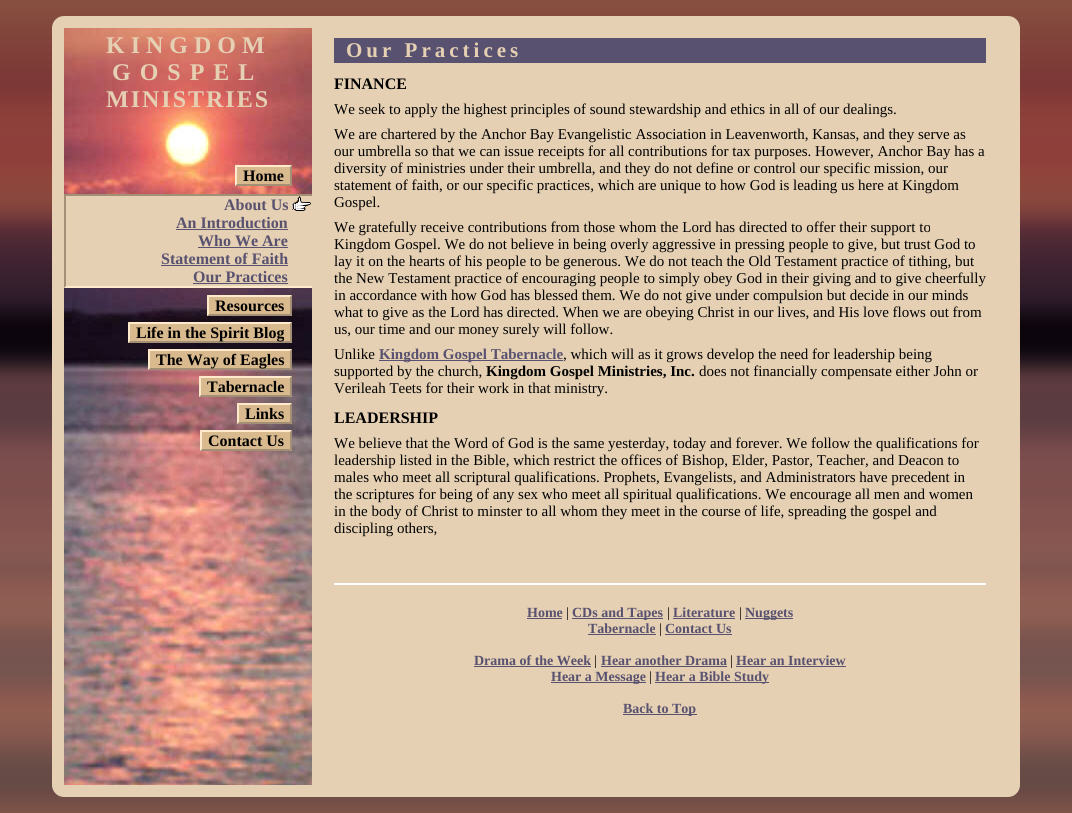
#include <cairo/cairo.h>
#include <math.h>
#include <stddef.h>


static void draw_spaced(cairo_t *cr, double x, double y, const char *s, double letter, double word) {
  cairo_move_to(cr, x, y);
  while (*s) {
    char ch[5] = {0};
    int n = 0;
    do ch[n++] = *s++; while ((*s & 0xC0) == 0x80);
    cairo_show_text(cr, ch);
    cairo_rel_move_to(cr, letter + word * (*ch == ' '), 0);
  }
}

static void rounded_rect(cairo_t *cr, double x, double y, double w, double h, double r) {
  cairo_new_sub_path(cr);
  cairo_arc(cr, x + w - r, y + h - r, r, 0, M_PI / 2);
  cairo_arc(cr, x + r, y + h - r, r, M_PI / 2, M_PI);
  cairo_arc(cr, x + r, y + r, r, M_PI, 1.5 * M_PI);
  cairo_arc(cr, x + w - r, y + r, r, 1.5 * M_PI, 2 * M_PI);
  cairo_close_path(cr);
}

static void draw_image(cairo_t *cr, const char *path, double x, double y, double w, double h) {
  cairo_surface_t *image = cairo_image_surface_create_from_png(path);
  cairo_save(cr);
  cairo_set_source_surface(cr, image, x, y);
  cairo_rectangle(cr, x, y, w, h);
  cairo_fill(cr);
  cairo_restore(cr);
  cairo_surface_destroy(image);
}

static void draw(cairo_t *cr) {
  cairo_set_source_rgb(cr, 1, 1, 1);
  cairo_paint(cr);
  draw_image(cr, "images/1.png", 0, 0, 1072, 813);
  rounded_rect(cr, 58, 22, 956, 769, 6);
  cairo_set_source_rgb(cr, 229 / 255.0, 208 / 255.0, 179 / 255.0);
  cairo_set_line_width(cr, 12);
  cairo_stroke(cr);
  draw_image(cr, "images/2.png", 64, 28, 248, 757);
  cairo_set_source_rgb(cr, 217 / 255.0, 186 / 255.0, 142 / 255.0);
  cairo_rectangle(cr, 235, 165, 57, 21);
  cairo_fill(cr);
  cairo_set_source_rgb(cr, 1, 234 / 255.0, 205 / 255.0);
  cairo_new_path(cr);
  cairo_move_to(cr, 235, 165);
  cairo_line_to(cr, 292, 165);
  cairo_line_to(cr, 290, 167);
  cairo_line_to(cr, 237, 167);
  cairo_close_path(cr);
  cairo_fill(cr);
  cairo_set_source_rgb(cr, 162 / 255.0, 143 / 255.0, 118 / 255.0);
  cairo_new_path(cr);
  cairo_move_to(cr, 292, 165);
  cairo_line_to(cr, 292, 186);
  cairo_line_to(cr, 290, 184);
  cairo_line_to(cr, 290, 167);
  cairo_close_path(cr);
  cairo_fill(cr);
  cairo_new_path(cr);
  cairo_move_to(cr, 292, 186);
  cairo_line_to(cr, 235, 186);
  cairo_line_to(cr, 237, 184);
  cairo_line_to(cr, 290, 184);
  cairo_close_path(cr);
  cairo_fill(cr);
  cairo_set_source_rgb(cr, 1, 234 / 255.0, 205 / 255.0);
  cairo_new_path(cr);
  cairo_move_to(cr, 235, 186);
  cairo_line_to(cr, 235, 165);
  cairo_line_to(cr, 237, 167);
  cairo_line_to(cr, 237, 184);
  cairo_close_path(cr);
  cairo_fill(cr);
  cairo_set_source_rgb(cr, 229 / 255.0, 208 / 255.0, 179 / 255.0);
  cairo_rectangle(cr, 64, 196, 248, 92);
  cairo_fill(cr);
  draw_image(cr, "images/3.png", 292, 196, 19, 15);
  cairo_set_source_rgb(cr, 162 / 255.0, 143 / 255.0, 118 / 255.0);
  cairo_rectangle(cr, 64, 194, 248, 2);
  cairo_fill(cr);
  cairo_set_source_rgb(cr, 1, 234 / 255.0, 205 / 255.0);
  cairo_new_path(cr);
  cairo_move_to(cr, 312, 288);
  cairo_line_to(cr, 64, 288);
  cairo_line_to(cr, 66, 286);
  cairo_line_to(cr, 312, 286);
  cairo_close_path(cr);
  cairo_fill(cr);
  cairo_set_source_rgb(cr, 162 / 255.0, 143 / 255.0, 118 / 255.0);
  cairo_new_path(cr);
  cairo_move_to(cr, 64, 288);
  cairo_line_to(cr, 64, 194);
  cairo_line_to(cr, 66, 196);
  cairo_line_to(cr, 66, 286);
  cairo_close_path(cr);
  cairo_fill(cr);
  cairo_set_source_rgb(cr, 88 / 255.0, 81 / 255.0, 111 / 255.0);
  cairo_rectangle(cr, 176, 229, 112, 1);
  cairo_fill(cr);
  cairo_rectangle(cr, 198, 247, 90, 1);
  cairo_fill(cr);
  cairo_rectangle(cr, 161, 265, 127, 1);
  cairo_fill(cr);
  cairo_rectangle(cr, 193, 283, 95, 1);
  cairo_fill(cr);
  cairo_set_source_rgb(cr, 217 / 255.0, 186 / 255.0, 142 / 255.0);
  cairo_rectangle(cr, 207, 295, 85, 21);
  cairo_fill(cr);
  cairo_set_source_rgb(cr, 1, 234 / 255.0, 205 / 255.0);
  cairo_new_path(cr);
  cairo_move_to(cr, 207, 295);
  cairo_line_to(cr, 292, 295);
  cairo_line_to(cr, 290, 297);
  cairo_line_to(cr, 209, 297);
  cairo_close_path(cr);
  cairo_fill(cr);
  cairo_set_source_rgb(cr, 162 / 255.0, 143 / 255.0, 118 / 255.0);
  cairo_new_path(cr);
  cairo_move_to(cr, 292, 295);
  cairo_line_to(cr, 292, 316);
  cairo_line_to(cr, 290, 314);
  cairo_line_to(cr, 290, 297);
  cairo_close_path(cr);
  cairo_fill(cr);
  cairo_new_path(cr);
  cairo_move_to(cr, 292, 316);
  cairo_line_to(cr, 207, 316);
  cairo_line_to(cr, 209, 314);
  cairo_line_to(cr, 290, 314);
  cairo_close_path(cr);
  cairo_fill(cr);
  cairo_set_source_rgb(cr, 1, 234 / 255.0, 205 / 255.0);
  cairo_new_path(cr);
  cairo_move_to(cr, 207, 316);
  cairo_line_to(cr, 207, 295);
  cairo_line_to(cr, 209, 297);
  cairo_line_to(cr, 209, 314);
  cairo_close_path(cr);
  cairo_fill(cr);
  cairo_set_source_rgb(cr, 217 / 255.0, 186 / 255.0, 142 / 255.0);
  cairo_rectangle(cr, 128, 322, 164, 21);
  cairo_fill(cr);
  cairo_set_source_rgb(cr, 1, 234 / 255.0, 205 / 255.0);
  cairo_new_path(cr);
  cairo_move_to(cr, 128, 322);
  cairo_line_to(cr, 292, 322);
  cairo_line_to(cr, 290, 324);
  cairo_line_to(cr, 130, 324);
  cairo_close_path(cr);
  cairo_fill(cr);
  cairo_set_source_rgb(cr, 162 / 255.0, 143 / 255.0, 118 / 255.0);
  cairo_new_path(cr);
  cairo_move_to(cr, 292, 322);
  cairo_line_to(cr, 292, 343);
  cairo_line_to(cr, 290, 341);
  cairo_line_to(cr, 290, 324);
  cairo_close_path(cr);
  cairo_fill(cr);
  cairo_new_path(cr);
  cairo_move_to(cr, 292, 343);
  cairo_line_to(cr, 128, 343);
  cairo_line_to(cr, 130, 341);
  cairo_line_to(cr, 290, 341);
  cairo_close_path(cr);
  cairo_fill(cr);
  cairo_set_source_rgb(cr, 1, 234 / 255.0, 205 / 255.0);
  cairo_new_path(cr);
  cairo_move_to(cr, 128, 343);
  cairo_line_to(cr, 128, 322);
  cairo_line_to(cr, 130, 324);
  cairo_line_to(cr, 130, 341);
  cairo_close_path(cr);
  cairo_fill(cr);
  cairo_set_source_rgb(cr, 217 / 255.0, 186 / 255.0, 142 / 255.0);
  cairo_rectangle(cr, 148, 349, 144, 21);
  cairo_fill(cr);
  cairo_set_source_rgb(cr, 1, 234 / 255.0, 205 / 255.0);
  cairo_new_path(cr);
  cairo_move_to(cr, 148, 349);
  cairo_line_to(cr, 292, 349);
  cairo_line_to(cr, 290, 351);
  cairo_line_to(cr, 150, 351);
  cairo_close_path(cr);
  cairo_fill(cr);
  cairo_set_source_rgb(cr, 162 / 255.0, 143 / 255.0, 118 / 255.0);
  cairo_new_path(cr);
  cairo_move_to(cr, 292, 349);
  cairo_line_to(cr, 292, 370);
  cairo_line_to(cr, 290, 368);
  cairo_line_to(cr, 290, 351);
  cairo_close_path(cr);
  cairo_fill(cr);
  cairo_new_path(cr);
  cairo_move_to(cr, 292, 370);
  cairo_line_to(cr, 148, 370);
  cairo_line_to(cr, 150, 368);
  cairo_line_to(cr, 290, 368);
  cairo_close_path(cr);
  cairo_fill(cr);
  cairo_set_source_rgb(cr, 1, 234 / 255.0, 205 / 255.0);
  cairo_new_path(cr);
  cairo_move_to(cr, 148, 370);
  cairo_line_to(cr, 148, 349);
  cairo_line_to(cr, 150, 351);
  cairo_line_to(cr, 150, 368);
  cairo_close_path(cr);
  cairo_fill(cr);
  cairo_set_source_rgb(cr, 217 / 255.0, 186 / 255.0, 142 / 255.0);
  cairo_rectangle(cr, 199, 376, 93, 21);
  cairo_fill(cr);
  cairo_set_source_rgb(cr, 1, 234 / 255.0, 205 / 255.0);
  cairo_new_path(cr);
  cairo_move_to(cr, 199, 376);
  cairo_line_to(cr, 292, 376);
  cairo_line_to(cr, 290, 378);
  cairo_line_to(cr, 201, 378);
  cairo_close_path(cr);
  cairo_fill(cr);
  cairo_set_source_rgb(cr, 162 / 255.0, 143 / 255.0, 118 / 255.0);
  cairo_new_path(cr);
  cairo_move_to(cr, 292, 376);
  cairo_line_to(cr, 292, 397);
  cairo_line_to(cr, 290, 395);
  cairo_line_to(cr, 290, 378);
  cairo_close_path(cr);
  cairo_fill(cr);
  cairo_new_path(cr);
  cairo_move_to(cr, 292, 397);
  cairo_line_to(cr, 199, 397);
  cairo_line_to(cr, 201, 395);
  cairo_line_to(cr, 290, 395);
  cairo_close_path(cr);
  cairo_fill(cr);
  cairo_set_source_rgb(cr, 1, 234 / 255.0, 205 / 255.0);
  cairo_new_path(cr);
  cairo_move_to(cr, 199, 397);
  cairo_line_to(cr, 199, 376);
  cairo_line_to(cr, 201, 378);
  cairo_line_to(cr, 201, 395);
  cairo_close_path(cr);
  cairo_fill(cr);
  cairo_set_source_rgb(cr, 217 / 255.0, 186 / 255.0, 142 / 255.0);
  cairo_rectangle(cr, 237, 403, 55, 21);
  cairo_fill(cr);
  cairo_set_source_rgb(cr, 1, 234 / 255.0, 205 / 255.0);
  cairo_new_path(cr);
  cairo_move_to(cr, 237, 403);
  cairo_line_to(cr, 292, 403);
  cairo_line_to(cr, 290, 405);
  cairo_line_to(cr, 239, 405);
  cairo_close_path(cr);
  cairo_fill(cr);
  cairo_set_source_rgb(cr, 162 / 255.0, 143 / 255.0, 118 / 255.0);
  cairo_new_path(cr);
  cairo_move_to(cr, 292, 403);
  cairo_line_to(cr, 292, 424);
  cairo_line_to(cr, 290, 422);
  cairo_line_to(cr, 290, 405);
  cairo_close_path(cr);
  cairo_fill(cr);
  cairo_new_path(cr);
  cairo_move_to(cr, 292, 424);
  cairo_line_to(cr, 237, 424);
  cairo_line_to(cr, 239, 422);
  cairo_line_to(cr, 290, 422);
  cairo_close_path(cr);
  cairo_fill(cr);
  cairo_set_source_rgb(cr, 1, 234 / 255.0, 205 / 255.0);
  cairo_new_path(cr);
  cairo_move_to(cr, 237, 424);
  cairo_line_to(cr, 237, 403);
  cairo_line_to(cr, 239, 405);
  cairo_line_to(cr, 239, 422);
  cairo_close_path(cr);
  cairo_fill(cr);
  cairo_set_source_rgb(cr, 217 / 255.0, 186 / 255.0, 142 / 255.0);
  cairo_rectangle(cr, 200, 430, 92, 21);
  cairo_fill(cr);
  cairo_set_source_rgb(cr, 1, 234 / 255.0, 205 / 255.0);
  cairo_new_path(cr);
  cairo_move_to(cr, 200, 430);
  cairo_line_to(cr, 292, 430);
  cairo_line_to(cr, 290, 432);
  cairo_line_to(cr, 202, 432);
  cairo_close_path(cr);
  cairo_fill(cr);
  cairo_set_source_rgb(cr, 162 / 255.0, 143 / 255.0, 118 / 255.0);
  cairo_new_path(cr);
  cairo_move_to(cr, 292, 430);
  cairo_line_to(cr, 292, 451);
  cairo_line_to(cr, 290, 449);
  cairo_line_to(cr, 290, 432);
  cairo_close_path(cr);
  cairo_fill(cr);
  cairo_new_path(cr);
  cairo_move_to(cr, 292, 451);
  cairo_line_to(cr, 200, 451);
  cairo_line_to(cr, 202, 449);
  cairo_line_to(cr, 290, 449);
  cairo_close_path(cr);
  cairo_fill(cr);
  cairo_set_source_rgb(cr, 1, 234 / 255.0, 205 / 255.0);
  cairo_new_path(cr);
  cairo_move_to(cr, 200, 451);
  cairo_line_to(cr, 200, 430);
  cairo_line_to(cr, 202, 432);
  cairo_line_to(cr, 202, 449);
  cairo_close_path(cr);
  cairo_fill(cr);
  cairo_set_source_rgb(cr, 229 / 255.0, 208 / 255.0, 179 / 255.0);
  cairo_rectangle(cr, 312, 28, 696, 757);
  cairo_fill(cr);
  cairo_set_source_rgb(cr, 88 / 255.0, 81 / 255.0, 111 / 255.0);
  cairo_rectangle(cr, 334, 38, 652, 25);
  cairo_fill(cr);
  cairo_rectangle(cr, 379, 360, 184, 1);
  cairo_fill(cr);
  cairo_set_source_rgb(cr, 1, 1, 1);
  cairo_rectangle(cr, 334, 583, 652, 2);
  cairo_fill(cr);
  cairo_set_source_rgb(cr, 88 / 255.0, 81 / 255.0, 111 / 255.0);
  cairo_rectangle(cr, 527, 618, 35, 1);
  cairo_fill(cr);
  cairo_rectangle(cr, 572, 618, 91, 1);
  cairo_fill(cr);
  cairo_rectangle(cr, 673, 618, 62, 1);
  cairo_fill(cr);
  cairo_rectangle(cr, 745, 618, 48, 1);
  cairo_fill(cr);
  cairo_rectangle(cr, 588, 634, 68, 1);
  cairo_fill(cr);
  cairo_rectangle(cr, 665, 634, 67, 1);
  cairo_fill(cr);
  cairo_rectangle(cr, 474, 666, 117, 1);
  cairo_fill(cr);
  cairo_rectangle(cr, 601, 666, 126, 1);
  cairo_fill(cr);
  cairo_rectangle(cr, 736, 666, 110, 1);
  cairo_fill(cr);
  cairo_rectangle(cr, 551, 682, 95, 1);
  cairo_fill(cr);
  cairo_rectangle(cr, 655, 682, 114, 1);
  cairo_fill(cr);
  cairo_rectangle(cr, 623, 714, 74, 1);
  cairo_fill(cr);
  cairo_select_font_face(cr, "Liberation Serif", CAIRO_FONT_SLANT_NORMAL, CAIRO_FONT_WEIGHT_BOLD);
  cairo_set_font_size(cr, 24);
  cairo_set_source_rgb(cr, 229 / 255.0, 208 / 255.0, 179 / 255.0);
  draw_spaced(cr, 106, 53, "KINGDOM", 6, 0);
  draw_spaced(cr, 112, 80, "GOSPEL", 9, 0);
  draw_spaced(cr, 106, 107, "MINISTRIES", 2, 0);
  cairo_set_font_size(cr, 16);
  cairo_set_source_rgb(cr, 0, 0, 0);
  cairo_move_to(cr, 243, 181);
  cairo_show_text(cr, "Home");
  cairo_set_source_rgb(cr, 88 / 255.0, 81 / 255.0, 111 / 255.0);
  cairo_move_to(cr, 224, 210);
  cairo_show_text(cr, "About Us");
  cairo_move_to(cr, 176, 228);
  cairo_show_text(cr, "An Introduction");
  cairo_move_to(cr, 198, 246);
  cairo_show_text(cr, "Who We Are");
  cairo_move_to(cr, 161, 264);
  cairo_show_text(cr, "Statement of Faith");
  cairo_move_to(cr, 193, 282);
  cairo_show_text(cr, "Our Practices");
  cairo_set_source_rgb(cr, 0, 0, 0);
  cairo_move_to(cr, 215, 311);
  cairo_show_text(cr, "Resources");
  cairo_move_to(cr, 136, 338);
  cairo_show_text(cr, "Life in the Spirit Blog");
  cairo_move_to(cr, 156, 365);
  cairo_show_text(cr, "The Way of Eagles");
  cairo_move_to(cr, 207, 392);
  cairo_show_text(cr, "Tabernacle");
  cairo_move_to(cr, 245, 419);
  cairo_show_text(cr, "Links");
  cairo_move_to(cr, 208, 446);
  cairo_show_text(cr, "Contact Us");
  cairo_set_font_size(cr, 21);
  cairo_set_source_rgb(cr, 229 / 255.0, 208 / 255.0, 179 / 255.0);
  draw_spaced(cr, 346, 57, "Our Practices", 4, 0);
  cairo_set_font_size(cr, 16);
  cairo_set_source_rgb(cr, 0, 0, 0);
  cairo_move_to(cr, 334, 89);
  cairo_show_text(cr, "FINANCE");
  cairo_select_font_face(cr, "Liberation Serif", CAIRO_FONT_SLANT_NORMAL, CAIRO_FONT_WEIGHT_NORMAL);
  cairo_set_font_size(cr, 15);
  cairo_move_to(cr, 334, 114);
  cairo_show_text(cr, "We seek to apply the highest principles of sound stewardship and ethics in all of our dealings.");
  cairo_move_to(cr, 334, 139);
  cairo_show_text(cr, "We are chartered by the Anchor Bay Evangelistic Association in Leavenworth, Kansas, and they serve as");
  cairo_move_to(cr, 334, 156);
  cairo_show_text(cr, "our umbrella so that we can issue receipts for all contributions for tax purposes. However, Anchor Bay has a");
  cairo_move_to(cr, 334, 173);
  cairo_show_text(cr, "diversity of ministries under their umbrella, and they do not define or control our specific mission, our");
  cairo_move_to(cr, 334, 190);
  cairo_show_text(cr, "statement of faith, or our specific practices, which are unique to how God is leading us here at Kingdom");
  cairo_move_to(cr, 334, 207);
  cairo_show_text(cr, "Gospel.");
  cairo_move_to(cr, 334, 232);
  cairo_show_text(cr, "We gratefully receive contributions from those whom the Lord has directed to offer their support to");
  cairo_move_to(cr, 334, 249);
  cairo_show_text(cr, "Kingdom Gospel. We do not believe in being overly aggressive in pressing people to give, but trust God to");
  cairo_move_to(cr, 334, 266);
  cairo_show_text(cr, "lay it on the hearts of his people to be generous. We do not teach the Old Testament practice of tithing, but");
  cairo_move_to(cr, 334, 283);
  cairo_show_text(cr, "the New Testament practice of encouraging people to simply obey God in their giving and to give cheerfully");
  cairo_move_to(cr, 334, 300);
  cairo_show_text(cr, "in accordance with how God has blessed them. We do not give under compulsion but decide in our minds");
  cairo_move_to(cr, 334, 317);
  cairo_show_text(cr, "what to give as the Lord has directed. When we are obeying Christ in our lives, and His love flows out from");
  cairo_move_to(cr, 334, 334);
  cairo_show_text(cr, "us, our time and our money surely will follow.");
  cairo_move_to(cr, 334, 359);
  cairo_show_text(cr, "Unlike");
  cairo_select_font_face(cr, "Liberation Serif", CAIRO_FONT_SLANT_NORMAL, CAIRO_FONT_WEIGHT_BOLD);
  cairo_set_source_rgb(cr, 88 / 255.0, 81 / 255.0, 111 / 255.0);
  cairo_move_to(cr, 379, 359);
  cairo_show_text(cr, "Kingdom Gospel Tabernacle");
  cairo_select_font_face(cr, "Liberation Serif", CAIRO_FONT_SLANT_NORMAL, CAIRO_FONT_WEIGHT_NORMAL);
  cairo_set_source_rgb(cr, 0, 0, 0);
  cairo_move_to(cr, 563, 359);
  cairo_show_text(cr, ", which will as it grows develop the need for leadership being");
  cairo_move_to(cr, 334, 376);
  cairo_show_text(cr, "supported by the church,");
  cairo_select_font_face(cr, "Liberation Serif", CAIRO_FONT_SLANT_NORMAL, CAIRO_FONT_WEIGHT_BOLD);
  cairo_move_to(cr, 486, 376);
  cairo_show_text(cr, "Kingdom Gospel Ministries, Inc.");
  cairo_select_font_face(cr, "Liberation Serif", CAIRO_FONT_SLANT_NORMAL, CAIRO_FONT_WEIGHT_NORMAL);
  cairo_move_to(cr, 699, 376);
  cairo_show_text(cr, "does not financially compensate either John or");
  cairo_move_to(cr, 334, 393);
  cairo_show_text(cr, "Verileah Teets for their work in that ministry.");
  cairo_select_font_face(cr, "Liberation Serif", CAIRO_FONT_SLANT_NORMAL, CAIRO_FONT_WEIGHT_BOLD);
  cairo_set_font_size(cr, 16);
  cairo_move_to(cr, 334, 423);
  cairo_show_text(cr, "LEADERSHIP");
  cairo_select_font_face(cr, "Liberation Serif", CAIRO_FONT_SLANT_NORMAL, CAIRO_FONT_WEIGHT_NORMAL);
  cairo_set_font_size(cr, 15);
  cairo_move_to(cr, 334, 448);
  cairo_show_text(cr, "We believe that the Word of God is the same yesterday, today and forever. We follow the qualifications for");
  cairo_move_to(cr, 334, 465);
  cairo_show_text(cr, "leadership listed in the Bible, which restrict the offices of Bishop, Elder, Pastor, Teacher, and Deacon to");
  cairo_move_to(cr, 334, 482);
  cairo_show_text(cr, "males who meet all scriptural qualifications. Prophets, Evangelists, and Administrators have precedent in");
  cairo_move_to(cr, 334, 499);
  cairo_show_text(cr, "the scriptures for being of any sex who meet all spiritual qualifications. We encourage all men and women");
  cairo_move_to(cr, 334, 516);
  cairo_show_text(cr, "in the body of Christ to minster to all whom they meet in the course of life, spreading the gospel and");
  cairo_move_to(cr, 334, 533);
  cairo_show_text(cr, "discipling others,");
  cairo_select_font_face(cr, "Liberation Serif", CAIRO_FONT_SLANT_NORMAL, CAIRO_FONT_WEIGHT_BOLD);
  cairo_set_font_size(cr, 14);
  cairo_set_source_rgb(cr, 88 / 255.0, 81 / 255.0, 111 / 255.0);
  cairo_move_to(cr, 527, 617);
  cairo_show_text(cr, "Home");
  cairo_select_font_face(cr, "Liberation Serif", CAIRO_FONT_SLANT_NORMAL, CAIRO_FONT_WEIGHT_NORMAL);
  cairo_set_source_rgb(cr, 0, 0, 0);
  cairo_move_to(cr, 566, 617);
  cairo_show_text(cr, "|");
  cairo_select_font_face(cr, "Liberation Serif", CAIRO_FONT_SLANT_NORMAL, CAIRO_FONT_WEIGHT_BOLD);
  cairo_set_source_rgb(cr, 88 / 255.0, 81 / 255.0, 111 / 255.0);
  cairo_move_to(cr, 572, 617);
  cairo_show_text(cr, "CDs and Tapes");
  cairo_select_font_face(cr, "Liberation Serif", CAIRO_FONT_SLANT_NORMAL, CAIRO_FONT_WEIGHT_NORMAL);
  cairo_set_source_rgb(cr, 0, 0, 0);
  cairo_move_to(cr, 667, 617);
  cairo_show_text(cr, "|");
  cairo_select_font_face(cr, "Liberation Serif", CAIRO_FONT_SLANT_NORMAL, CAIRO_FONT_WEIGHT_BOLD);
  cairo_set_source_rgb(cr, 88 / 255.0, 81 / 255.0, 111 / 255.0);
  cairo_move_to(cr, 673, 617);
  cairo_show_text(cr, "Literature");
  cairo_select_font_face(cr, "Liberation Serif", CAIRO_FONT_SLANT_NORMAL, CAIRO_FONT_WEIGHT_NORMAL);
  cairo_set_source_rgb(cr, 0, 0, 0);
  cairo_move_to(cr, 739, 617);
  cairo_show_text(cr, "|");
  cairo_select_font_face(cr, "Liberation Serif", CAIRO_FONT_SLANT_NORMAL, CAIRO_FONT_WEIGHT_BOLD);
  cairo_set_source_rgb(cr, 88 / 255.0, 81 / 255.0, 111 / 255.0);
  cairo_move_to(cr, 745, 617);
  cairo_show_text(cr, "Nuggets");
  cairo_move_to(cr, 588, 633);
  cairo_show_text(cr, "Tabernacle");
  cairo_select_font_face(cr, "Liberation Serif", CAIRO_FONT_SLANT_NORMAL, CAIRO_FONT_WEIGHT_NORMAL);
  cairo_set_source_rgb(cr, 0, 0, 0);
  cairo_move_to(cr, 659, 633);
  cairo_show_text(cr, "|");
  cairo_select_font_face(cr, "Liberation Serif", CAIRO_FONT_SLANT_NORMAL, CAIRO_FONT_WEIGHT_BOLD);
  cairo_set_source_rgb(cr, 88 / 255.0, 81 / 255.0, 111 / 255.0);
  cairo_move_to(cr, 665, 633);
  cairo_show_text(cr, "Contact Us");
  cairo_move_to(cr, 474, 665);
  cairo_show_text(cr, "Drama of the Week");
  cairo_select_font_face(cr, "Liberation Serif", CAIRO_FONT_SLANT_NORMAL, CAIRO_FONT_WEIGHT_NORMAL);
  cairo_set_source_rgb(cr, 0, 0, 0);
  cairo_move_to(cr, 594, 665);
  cairo_show_text(cr, "|");
  cairo_select_font_face(cr, "Liberation Serif", CAIRO_FONT_SLANT_NORMAL, CAIRO_FONT_WEIGHT_BOLD);
  cairo_set_source_rgb(cr, 88 / 255.0, 81 / 255.0, 111 / 255.0);
  cairo_move_to(cr, 601, 665);
  cairo_show_text(cr, "Hear another Drama");
  cairo_select_font_face(cr, "Liberation Serif", CAIRO_FONT_SLANT_NORMAL, CAIRO_FONT_WEIGHT_NORMAL);
  cairo_set_source_rgb(cr, 0, 0, 0);
  cairo_move_to(cr, 730, 665);
  cairo_show_text(cr, "|");
  cairo_select_font_face(cr, "Liberation Serif", CAIRO_FONT_SLANT_NORMAL, CAIRO_FONT_WEIGHT_BOLD);
  cairo_set_source_rgb(cr, 88 / 255.0, 81 / 255.0, 111 / 255.0);
  cairo_move_to(cr, 736, 665);
  cairo_show_text(cr, "Hear an Interview");
  cairo_move_to(cr, 551, 681);
  cairo_show_text(cr, "Hear a Message");
  cairo_select_font_face(cr, "Liberation Serif", CAIRO_FONT_SLANT_NORMAL, CAIRO_FONT_WEIGHT_NORMAL);
  cairo_set_source_rgb(cr, 0, 0, 0);
  cairo_move_to(cr, 649, 681);
  cairo_show_text(cr, "|");
  cairo_select_font_face(cr, "Liberation Serif", CAIRO_FONT_SLANT_NORMAL, CAIRO_FONT_WEIGHT_BOLD);
  cairo_set_source_rgb(cr, 88 / 255.0, 81 / 255.0, 111 / 255.0);
  cairo_move_to(cr, 655, 681);
  cairo_show_text(cr, "Hear a Bible Study");
  cairo_move_to(cr, 623, 713);
  cairo_show_text(cr, "Back to Top");
}

int main(void) {
  cairo_surface_t *surface = cairo_image_surface_create(CAIRO_FORMAT_RGB24, 1072, 813);
  cairo_t *cr = cairo_create(surface);
  cairo_font_options_t *options = cairo_font_options_create();
  cairo_font_options_set_hint_metrics(options, CAIRO_HINT_METRICS_OFF);
  cairo_font_options_set_hint_style(options, CAIRO_HINT_STYLE_NONE);
  cairo_set_font_options(cr, options);
  cairo_set_miter_limit(cr, 4);
  draw(cr);
  cairo_surface_write_to_png(surface, "out.png");
  cairo_font_options_destroy(options);
  cairo_destroy(cr);
  cairo_surface_destroy(surface);
  return 0;
}
